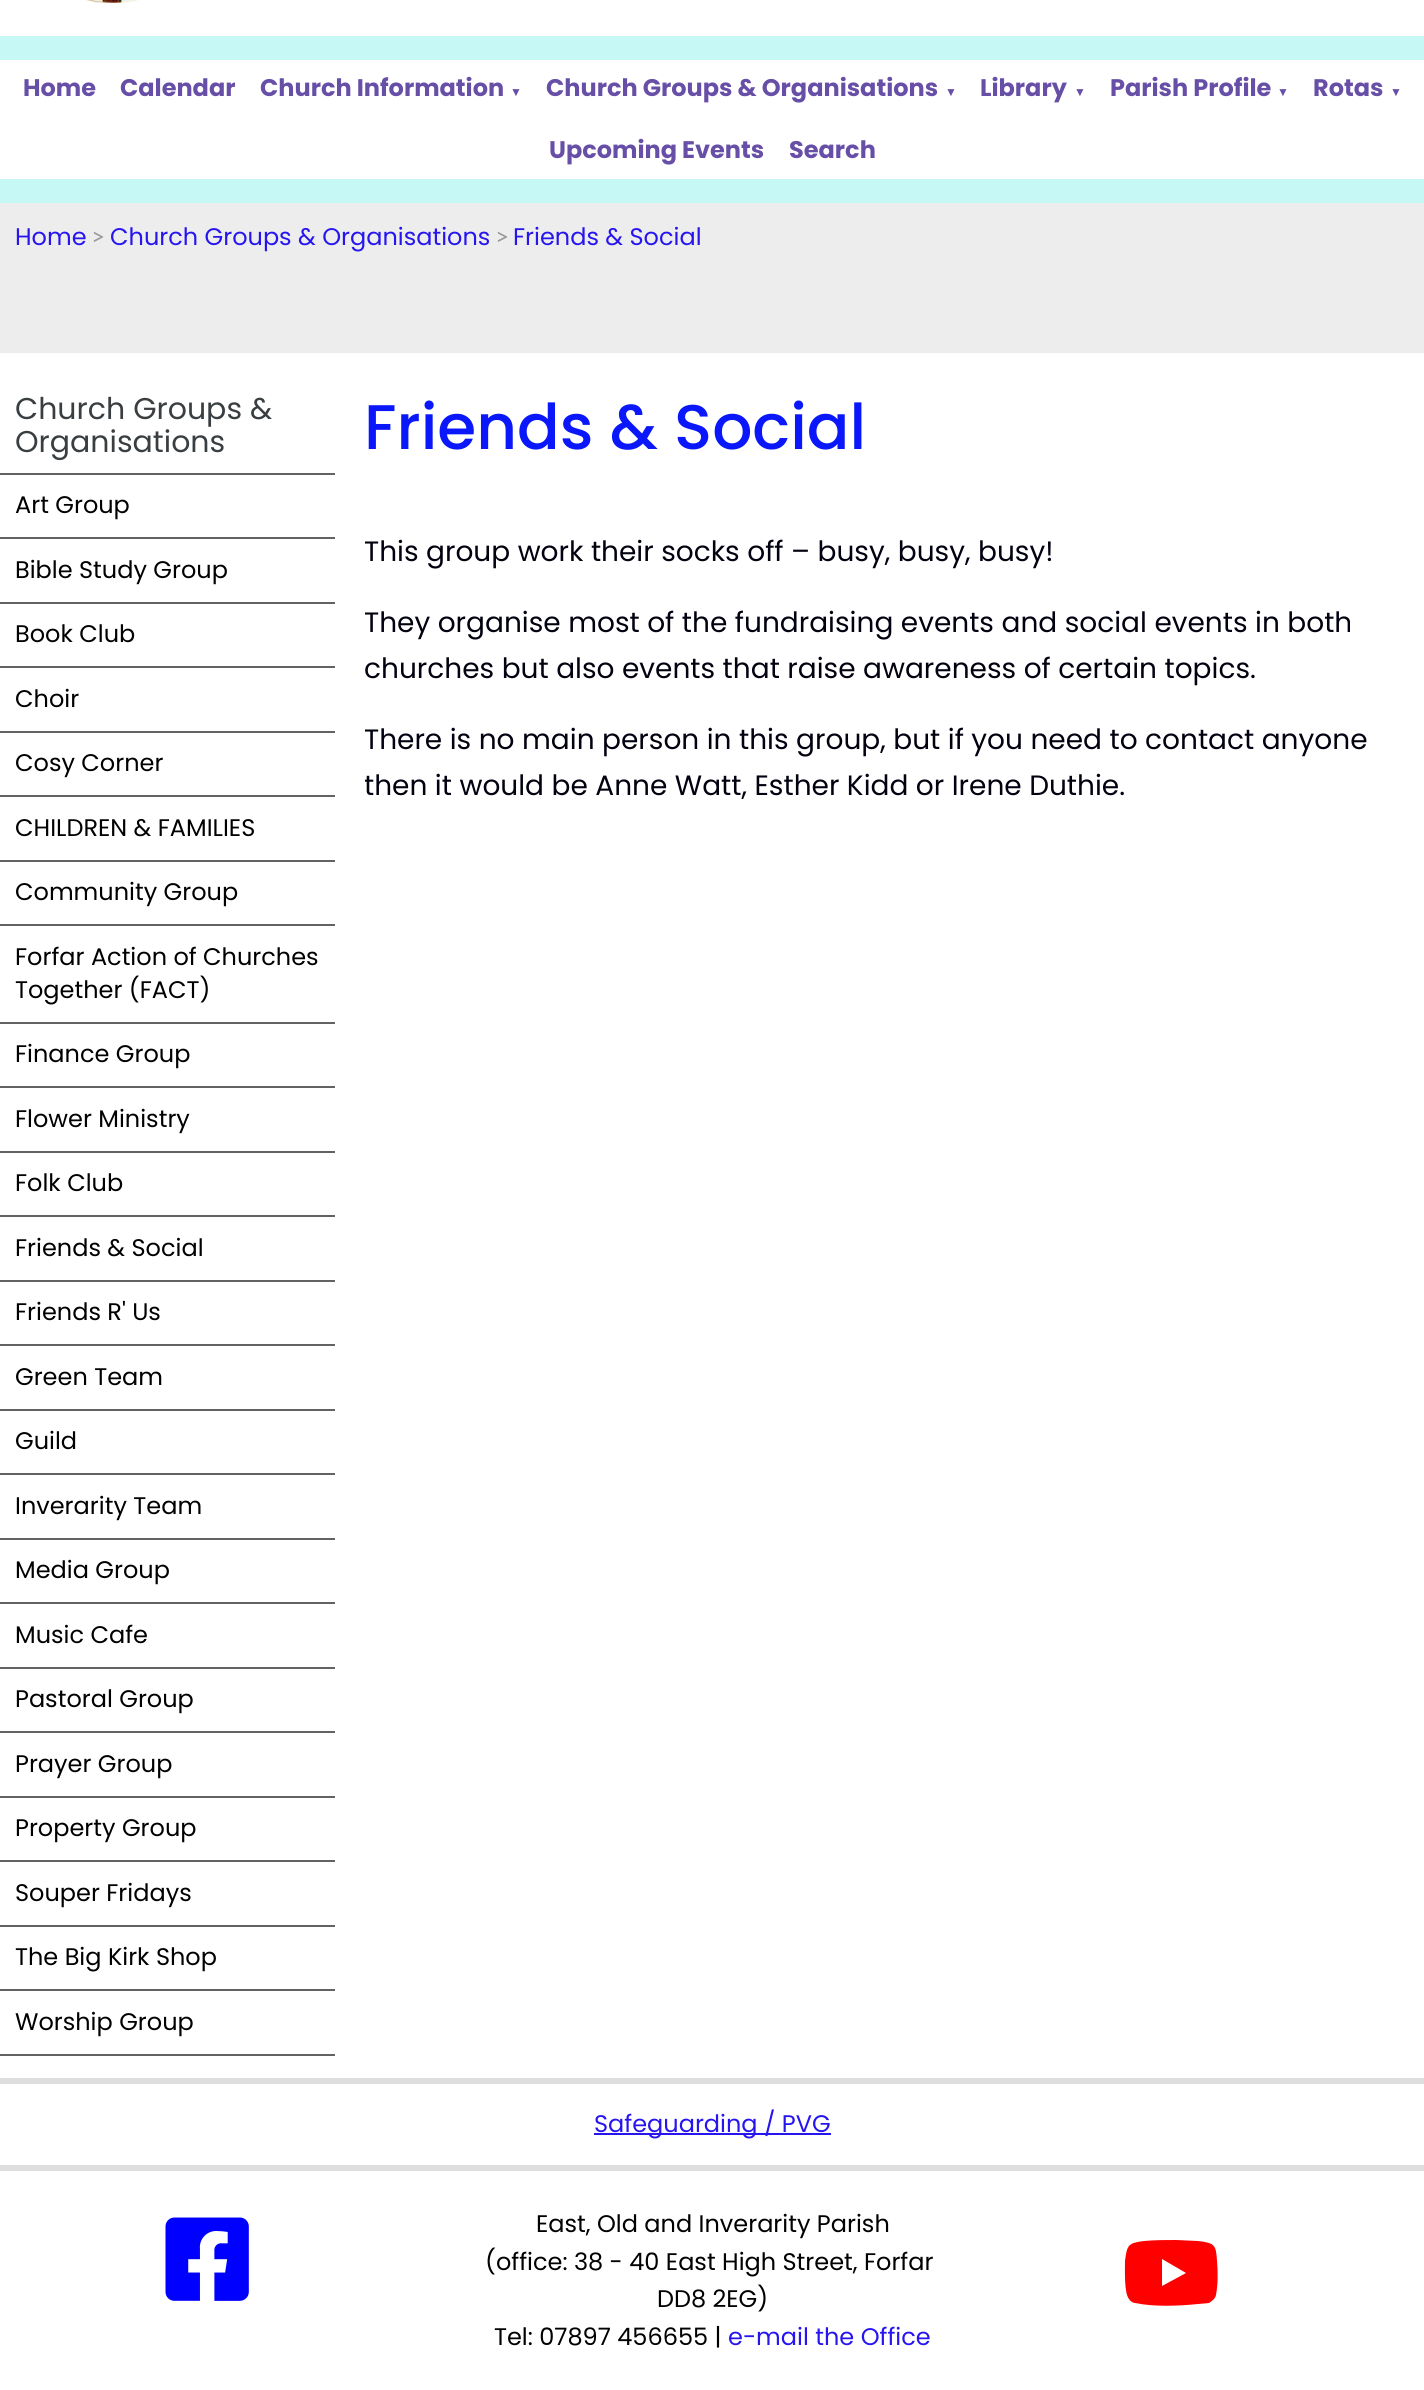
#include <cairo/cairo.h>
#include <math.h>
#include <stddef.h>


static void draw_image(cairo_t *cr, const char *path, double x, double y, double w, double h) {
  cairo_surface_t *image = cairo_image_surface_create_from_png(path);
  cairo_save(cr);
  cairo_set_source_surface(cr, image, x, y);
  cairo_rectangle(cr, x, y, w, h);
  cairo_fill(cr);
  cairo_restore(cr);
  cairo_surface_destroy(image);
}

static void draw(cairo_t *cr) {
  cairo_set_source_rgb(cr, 1, 1, 1);
  cairo_paint(cr);
  draw_image(cr, "images/1.png", 85, 0, 54, 3);
  cairo_set_source_rgb(cr, 198 / 255.0, 248 / 255.0, 246 / 255.0);
  cairo_rectangle(cr, 0, 36, 1424, 167);
  cairo_fill(cr);
  cairo_set_source_rgb(cr, 1, 1, 1);
  cairo_rectangle(cr, 0, 60, 1424, 119);
  cairo_fill(cr);
  cairo_set_source_rgb(cr, 237 / 255.0, 237 / 255.0, 237 / 255.0);
  cairo_rectangle(cr, 0, 203, 1424, 150);
  cairo_fill(cr);
  cairo_set_source_rgb(cr, 98 / 255.0, 98 / 255.0, 98 / 255.0);
  cairo_rectangle(cr, 0, 473, 335, 2);
  cairo_fill(cr);
  cairo_rectangle(cr, 0, 537, 335, 2);
  cairo_fill(cr);
  cairo_rectangle(cr, 0, 602, 335, 2);
  cairo_fill(cr);
  cairo_rectangle(cr, 0, 666, 335, 2);
  cairo_fill(cr);
  cairo_rectangle(cr, 0, 731, 335, 2);
  cairo_fill(cr);
  cairo_rectangle(cr, 0, 795, 335, 2);
  cairo_fill(cr);
  cairo_rectangle(cr, 0, 860, 335, 2);
  cairo_fill(cr);
  cairo_rectangle(cr, 0, 924, 335, 2);
  cairo_fill(cr);
  cairo_rectangle(cr, 0, 1022, 335, 2);
  cairo_fill(cr);
  cairo_rectangle(cr, 0, 1086, 335, 2);
  cairo_fill(cr);
  cairo_rectangle(cr, 0, 1151, 335, 2);
  cairo_fill(cr);
  cairo_rectangle(cr, 0, 1215, 335, 2);
  cairo_fill(cr);
  cairo_rectangle(cr, 0, 1280, 335, 2);
  cairo_fill(cr);
  cairo_rectangle(cr, 0, 1344, 335, 2);
  cairo_fill(cr);
  cairo_rectangle(cr, 0, 1409, 335, 2);
  cairo_fill(cr);
  cairo_rectangle(cr, 0, 1473, 335, 2);
  cairo_fill(cr);
  cairo_rectangle(cr, 0, 1538, 335, 2);
  cairo_fill(cr);
  cairo_rectangle(cr, 0, 1602, 335, 2);
  cairo_fill(cr);
  cairo_rectangle(cr, 0, 1667, 335, 2);
  cairo_fill(cr);
  cairo_rectangle(cr, 0, 1731, 335, 2);
  cairo_fill(cr);
  cairo_rectangle(cr, 0, 1796, 335, 2);
  cairo_fill(cr);
  cairo_rectangle(cr, 0, 1860, 335, 2);
  cairo_fill(cr);
  cairo_rectangle(cr, 0, 1925, 335, 2);
  cairo_fill(cr);
  cairo_rectangle(cr, 0, 1989, 335, 2);
  cairo_fill(cr);
  cairo_rectangle(cr, 0, 2054, 335, 2);
  cairo_fill(cr);
  cairo_set_source_rgb(cr, 222 / 255.0, 222 / 255.0, 222 / 255.0);
  cairo_rectangle(cr, 0, 2078, 1424, 6);
  cairo_fill(cr);
  cairo_set_source_rgb(cr, 38 / 255.0, 21 / 255.0, 239 / 255.0);
  cairo_rectangle(cr, 594, 2133, 237, 2);
  cairo_fill(cr);
  cairo_set_source_rgb(cr, 222 / 255.0, 222 / 255.0, 222 / 255.0);
  cairo_rectangle(cr, 0, 2165, 1424, 6);
  cairo_fill(cr);
  draw_image(cr, "images/2.png", 165, 2217, 84, 84);
  cairo_set_source_rgb(cr, 1, 0, 0);
  cairo_new_path(cr);
  cairo_move_to(cr, 1216, 2295);
  cairo_curve_to(cr, 1215, 2299, 1212, 2301, 1209, 2303);
  cairo_line_to(cr, 1198, 2304);
  cairo_curve_to(cr, 1179, 2306, 1154, 2307, 1135, 2303);
  cairo_curve_to(cr, 1133, 2303, 1130, 2301, 1129, 2299);
  cairo_curve_to(cr, 1124, 2293, 1125, 2270, 1125, 2261);
  cairo_curve_to(cr, 1127, 2245, 1128, 2243, 1144, 2241);
  cairo_curve_to(cr, 1155, 2240, 1165, 2240, 1176, 2240);
  cairo_line_to(cr, 1198, 2241);
  cairo_curve_to(cr, 1215, 2243, 1216, 2245, 1217, 2261);
  cairo_curve_to(cr, 1218, 2273, 1218, 2284, 1216, 2295);
  cairo_close_path(cr);
  cairo_move_to(cr, 1162, 2259);
  cairo_line_to(cr, 1162, 2286);
  cairo_line_to(cr, 1186, 2273);
  cairo_close_path(cr);
  cairo_fill(cr);
  cairo_select_font_face(cr, "Poppins", CAIRO_FONT_SLANT_NORMAL, CAIRO_FONT_WEIGHT_BOLD);
  cairo_set_font_size(cr, 24);
  cairo_set_source_rgb(cr, 103 / 255.0, 78 / 255.0, 167 / 255.0);
  cairo_move_to(cr, 23, 96);
  cairo_show_text(cr, "Home");
  cairo_move_to(cr, 120, 96);
  cairo_show_text(cr, "Calendar");
  cairo_move_to(cr, 260, 96);
  cairo_show_text(cr, "Church Information");
  cairo_select_font_face(cr, "Liberation Serif", CAIRO_FONT_SLANT_NORMAL, CAIRO_FONT_WEIGHT_BOLD);
  cairo_set_font_size(cr, 12);
  cairo_move_to(cr, 510, 96);
  cairo_show_text(cr, "▼");
  cairo_select_font_face(cr, "Poppins", CAIRO_FONT_SLANT_NORMAL, CAIRO_FONT_WEIGHT_BOLD);
  cairo_set_font_size(cr, 24);
  cairo_move_to(cr, 546, 96);
  cairo_show_text(cr, "Church Groups & Organisations");
  cairo_select_font_face(cr, "Liberation Serif", CAIRO_FONT_SLANT_NORMAL, CAIRO_FONT_WEIGHT_BOLD);
  cairo_set_font_size(cr, 12);
  cairo_move_to(cr, 945, 96);
  cairo_show_text(cr, "▼");
  cairo_select_font_face(cr, "Poppins", CAIRO_FONT_SLANT_NORMAL, CAIRO_FONT_WEIGHT_BOLD);
  cairo_set_font_size(cr, 24);
  cairo_move_to(cr, 980, 96);
  cairo_show_text(cr, "Library");
  cairo_select_font_face(cr, "Liberation Serif", CAIRO_FONT_SLANT_NORMAL, CAIRO_FONT_WEIGHT_BOLD);
  cairo_set_font_size(cr, 12);
  cairo_move_to(cr, 1074, 96);
  cairo_show_text(cr, "▼");
  cairo_select_font_face(cr, "Poppins", CAIRO_FONT_SLANT_NORMAL, CAIRO_FONT_WEIGHT_BOLD);
  cairo_set_font_size(cr, 24);
  cairo_move_to(cr, 1110, 96);
  cairo_show_text(cr, "Parish Profile");
  cairo_select_font_face(cr, "Liberation Serif", CAIRO_FONT_SLANT_NORMAL, CAIRO_FONT_WEIGHT_BOLD);
  cairo_set_font_size(cr, 12);
  cairo_move_to(cr, 1277, 96);
  cairo_show_text(cr, "▼");
  cairo_select_font_face(cr, "Poppins", CAIRO_FONT_SLANT_NORMAL, CAIRO_FONT_WEIGHT_BOLD);
  cairo_set_font_size(cr, 24);
  cairo_move_to(cr, 1313, 96);
  cairo_show_text(cr, "Rotas");
  cairo_select_font_face(cr, "Liberation Serif", CAIRO_FONT_SLANT_NORMAL, CAIRO_FONT_WEIGHT_BOLD);
  cairo_set_font_size(cr, 12);
  cairo_move_to(cr, 1390, 96);
  cairo_show_text(cr, "▼");
  cairo_select_font_face(cr, "Poppins", CAIRO_FONT_SLANT_NORMAL, CAIRO_FONT_WEIGHT_BOLD);
  cairo_set_font_size(cr, 24);
  cairo_move_to(cr, 549, 158);
  cairo_show_text(cr, "Upcoming Events");
  cairo_move_to(cr, 789, 158);
  cairo_show_text(cr, "Search");
  cairo_select_font_face(cr, "Poppins", CAIRO_FONT_SLANT_NORMAL, CAIRO_FONT_WEIGHT_NORMAL);
  cairo_set_source_rgb(cr, 38 / 255.0, 21 / 255.0, 239 / 255.0);
  cairo_move_to(cr, 15, 245);
  cairo_show_text(cr, "Home");
  cairo_select_font_face(cr, "Lato", CAIRO_FONT_SLANT_NORMAL, CAIRO_FONT_WEIGHT_NORMAL);
  cairo_set_source_rgb(cr, 153 / 255.0, 153 / 255.0, 153 / 255.0);
  cairo_move_to(cr, 91, 245);
  cairo_show_text(cr, ">");
  cairo_select_font_face(cr, "Poppins", CAIRO_FONT_SLANT_NORMAL, CAIRO_FONT_WEIGHT_NORMAL);
  cairo_set_source_rgb(cr, 38 / 255.0, 21 / 255.0, 239 / 255.0);
  cairo_move_to(cr, 110, 245);
  cairo_show_text(cr, "Church Groups & Organisations");
  cairo_select_font_face(cr, "Lato", CAIRO_FONT_SLANT_NORMAL, CAIRO_FONT_WEIGHT_NORMAL);
  cairo_set_source_rgb(cr, 153 / 255.0, 153 / 255.0, 153 / 255.0);
  cairo_move_to(cr, 495, 245);
  cairo_show_text(cr, ">");
  cairo_select_font_face(cr, "Poppins", CAIRO_FONT_SLANT_NORMAL, CAIRO_FONT_WEIGHT_NORMAL);
  cairo_set_source_rgb(cr, 38 / 255.0, 21 / 255.0, 239 / 255.0);
  cairo_move_to(cr, 513, 245);
  cairo_show_text(cr, "Friends & Social");
  cairo_set_font_size(cr, 30);
  cairo_set_source_rgb(cr, 57 / 255.0, 62 / 255.0, 65 / 255.0);
  cairo_move_to(cr, 15, 419);
  cairo_show_text(cr, "Church Groups &");
  cairo_move_to(cr, 15, 452);
  cairo_show_text(cr, "Organisations");
  cairo_set_font_size(cr, 24);
  cairo_set_source_rgb(cr, 0, 0, 0);
  cairo_move_to(cr, 15, 513);
  cairo_show_text(cr, "Art Group");
  cairo_move_to(cr, 15, 578);
  cairo_show_text(cr, "Bible Study Group");
  cairo_move_to(cr, 15, 642);
  cairo_show_text(cr, "Book Club");
  cairo_move_to(cr, 15, 707);
  cairo_show_text(cr, "Choir");
  cairo_move_to(cr, 15, 771);
  cairo_show_text(cr, "Cosy Corner");
  cairo_move_to(cr, 15, 836);
  cairo_show_text(cr, "CHILDREN & FAMILIES");
  cairo_move_to(cr, 15, 900);
  cairo_show_text(cr, "Community Group");
  cairo_move_to(cr, 15, 965);
  cairo_show_text(cr, "Forfar Action of Churches");
  cairo_move_to(cr, 15, 998);
  cairo_show_text(cr, "Together (FACT)");
  cairo_move_to(cr, 15, 1062);
  cairo_show_text(cr, "Finance Group");
  cairo_move_to(cr, 15, 1127);
  cairo_show_text(cr, "Flower Ministry");
  cairo_move_to(cr, 15, 1191);
  cairo_show_text(cr, "Folk Club");
  cairo_move_to(cr, 15, 1256);
  cairo_show_text(cr, "Friends & Social");
  cairo_move_to(cr, 15, 1320);
  cairo_show_text(cr, "Friends R' Us");
  cairo_move_to(cr, 15, 1385);
  cairo_show_text(cr, "Green Team");
  cairo_move_to(cr, 15, 1449);
  cairo_show_text(cr, "Guild");
  cairo_move_to(cr, 15, 1514);
  cairo_show_text(cr, "Inverarity Team");
  cairo_move_to(cr, 15, 1578);
  cairo_show_text(cr, "Media Group");
  cairo_move_to(cr, 15, 1643);
  cairo_show_text(cr, "Music Cafe");
  cairo_move_to(cr, 15, 1707);
  cairo_show_text(cr, "Pastoral Group");
  cairo_move_to(cr, 15, 1772);
  cairo_show_text(cr, "Prayer Group");
  cairo_move_to(cr, 15, 1836);
  cairo_show_text(cr, "Property Group");
  cairo_move_to(cr, 15, 1901);
  cairo_show_text(cr, "Souper Fridays");
  cairo_move_to(cr, 15, 1965);
  cairo_show_text(cr, "The Big Kirk Shop");
  cairo_move_to(cr, 15, 2030);
  cairo_show_text(cr, "Worship Group");
  cairo_select_font_face(cr, "Poppins Medium", CAIRO_FONT_SLANT_NORMAL, CAIRO_FONT_WEIGHT_NORMAL);
  cairo_set_font_size(cr, 63);
  cairo_set_source_rgb(cr, 9 / 255.0, 23 / 255.0, 250 / 255.0);
  cairo_move_to(cr, 364, 449);
  cairo_show_text(cr, "Friends & Social");
  cairo_save(cr);
  cairo_rectangle(cr, 365, 503, 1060, 436);
  cairo_clip(cr);
  cairo_select_font_face(cr, "Poppins", CAIRO_FONT_SLANT_NORMAL, CAIRO_FONT_WEIGHT_NORMAL);
  cairo_set_font_size(cr, 28);
  cairo_set_source_rgb(cr, 1 / 255.0, 1 / 255.0, 16 / 255.0);
  cairo_move_to(cr, 364, 561);
  cairo_show_text(cr, "This group work their socks off – busy, busy, busy!");
  cairo_move_to(cr, 364, 632);
  cairo_show_text(cr, "They organise most of the fundraising events and social events in both");
  cairo_restore(cr);
  cairo_select_font_face(cr, "Poppins", CAIRO_FONT_SLANT_NORMAL, CAIRO_FONT_WEIGHT_NORMAL);
  cairo_set_font_size(cr, 28);
  cairo_set_source_rgb(cr, 1 / 255.0, 1 / 255.0, 16 / 255.0);
  cairo_move_to(cr, 364, 678);
  cairo_show_text(cr, "churches but also events that raise awareness of certain topics.");
  cairo_save(cr);
  cairo_rectangle(cr, 365, 503, 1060, 436);
  cairo_clip(cr);
  cairo_move_to(cr, 364, 749);
  cairo_show_text(cr, "There is no main person in this group, but if you need to contact anyone");
  cairo_move_to(cr, 364, 795);
  cairo_show_text(cr, "then it would be Anne Watt, Esther Kidd or Irene Duthie.");
  cairo_restore(cr);
  cairo_set_font_size(cr, 24);
  cairo_set_source_rgb(cr, 38 / 255.0, 21 / 255.0, 239 / 255.0);
  cairo_move_to(cr, 594, 2132);
  cairo_show_text(cr, "Safeguarding / PVG");
  cairo_set_source_rgb(cr, 0, 0, 0);
  cairo_move_to(cr, 536, 2232);
  cairo_show_text(cr, "East, Old and Inverarity Parish");
  cairo_move_to(cr, 485, 2270);
  cairo_show_text(cr, "(office: 38 - 40 East High Street, Forfar");
  cairo_move_to(cr, 657, 2307);
  cairo_show_text(cr, "DD8 2EG)");
  cairo_move_to(cr, 494, 2345);
  cairo_show_text(cr, "Tel: 07897 456655 |");
  cairo_set_source_rgb(cr, 38 / 255.0, 21 / 255.0, 239 / 255.0);
  cairo_move_to(cr, 728, 2345);
  cairo_show_text(cr, "e-mail the Office");
}

int main(void) {
  cairo_surface_t *surface = cairo_image_surface_create(CAIRO_FORMAT_RGB24, 1424, 2390);
  cairo_t *cr = cairo_create(surface);
  cairo_font_options_t *options = cairo_font_options_create();
  cairo_font_options_set_hint_metrics(options, CAIRO_HINT_METRICS_OFF);
  cairo_font_options_set_hint_style(options, CAIRO_HINT_STYLE_NONE);
  cairo_set_font_options(cr, options);
  cairo_set_miter_limit(cr, 4);
  draw(cr);
  cairo_surface_write_to_png(surface, "out.png");
  cairo_font_options_destroy(options);
  cairo_destroy(cr);
  cairo_surface_destroy(surface);
  return 0;
}
